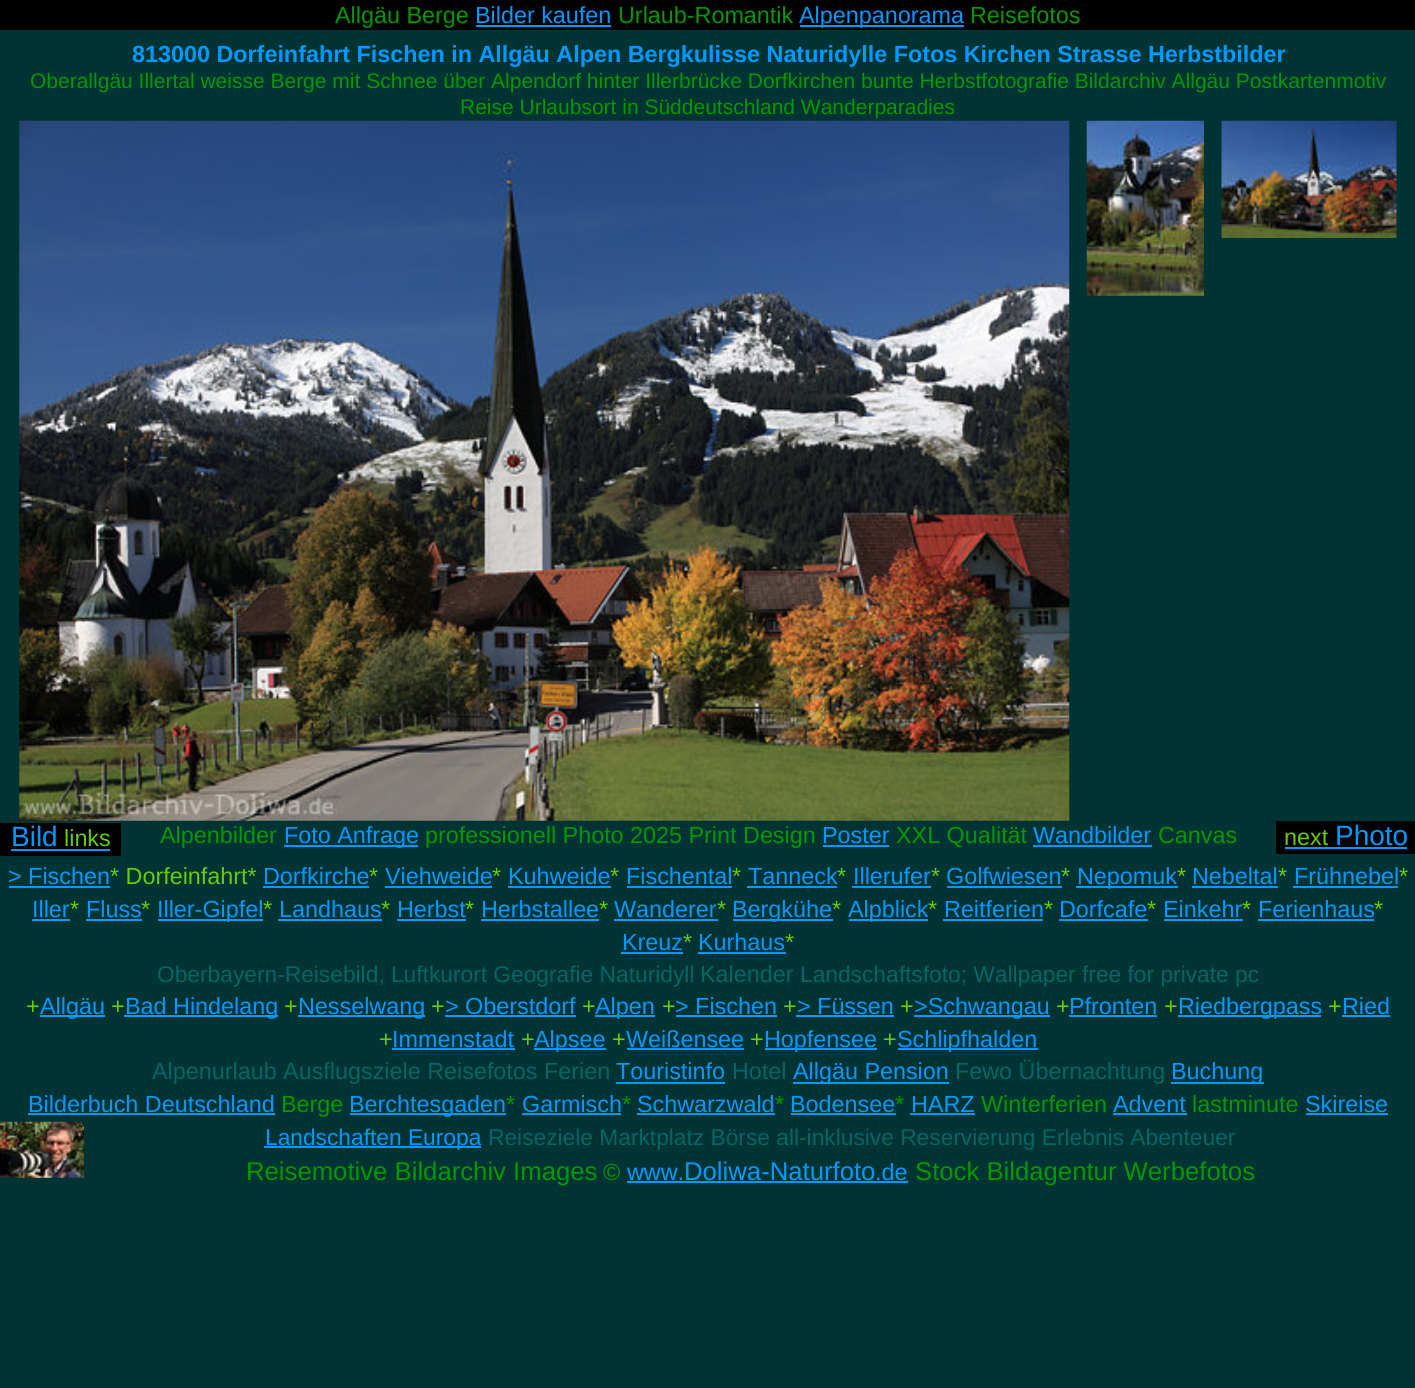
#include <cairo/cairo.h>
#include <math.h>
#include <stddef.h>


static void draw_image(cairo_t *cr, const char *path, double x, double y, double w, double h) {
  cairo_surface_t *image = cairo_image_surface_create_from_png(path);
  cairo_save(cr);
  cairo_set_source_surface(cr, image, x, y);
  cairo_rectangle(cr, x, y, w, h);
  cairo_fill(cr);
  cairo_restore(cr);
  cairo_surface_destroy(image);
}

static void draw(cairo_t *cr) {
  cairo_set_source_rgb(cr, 0, 51 / 255.0, 51 / 255.0);
  cairo_paint(cr);
  cairo_set_source_rgb(cr, 0, 0, 0);
  cairo_rectangle(cr, 0, 0, 1415, 30);
  cairo_fill(cr);
  cairo_set_source_rgb(cr, 0, 153 / 255.0, 1);
  cairo_rectangle(cr, 476, 25, 135, 2);
  cairo_fill(cr);
  cairo_rectangle(cr, 800, 25, 164, 2);
  cairo_fill(cr);
  draw_image(cr, "images/1.png", 19, 120, 1051, 701);
  draw_image(cr, "images/2.png", 1086, 120, 118, 176);
  draw_image(cr, "images/3.png", 1221, 120, 176, 118);
  cairo_set_source_rgb(cr, 0, 0, 0);
  cairo_rectangle(cr, 0, 823, 121, 33);
  cairo_fill(cr);
  cairo_set_source_rgb(cr, 0, 153 / 255.0, 1);
  cairo_rectangle(cr, 11, 849, 99, 2);
  cairo_fill(cr);
  cairo_rectangle(cr, 284, 845, 134, 2);
  cairo_fill(cr);
  cairo_rectangle(cr, 823, 845, 66, 2);
  cairo_fill(cr);
  cairo_rectangle(cr, 1033, 845, 119, 2);
  cairo_fill(cr);
  cairo_set_source_rgb(cr, 0, 0, 0);
  cairo_rectangle(cr, 1276, 821, 139, 33);
  cairo_fill(cr);
  cairo_set_source_rgb(cr, 0, 153 / 255.0, 1);
  cairo_rectangle(cr, 1285, 847, 122, 2);
  cairo_fill(cr);
  cairo_rectangle(cr, 9, 886, 101, 2);
  cairo_fill(cr);
  cairo_rectangle(cr, 263, 886, 106, 2);
  cairo_fill(cr);
  cairo_rectangle(cr, 385, 886, 107, 2);
  cairo_fill(cr);
  cairo_rectangle(cr, 508, 886, 103, 2);
  cairo_fill(cr);
  cairo_rectangle(cr, 627, 886, 105, 2);
  cairo_fill(cr);
  cairo_rectangle(cr, 747, 886, 90, 2);
  cairo_fill(cr);
  cairo_rectangle(cr, 852, 886, 79, 2);
  cairo_fill(cr);
  cairo_rectangle(cr, 947, 886, 115, 2);
  cairo_fill(cr);
  cairo_rectangle(cr, 1076, 886, 102, 2);
  cairo_fill(cr);
  cairo_rectangle(cr, 1192, 886, 86, 2);
  cairo_fill(cr);
  cairo_rectangle(cr, 1293, 886, 105, 2);
  cairo_fill(cr);
  cairo_rectangle(cr, 32, 919, 38, 2);
  cairo_fill(cr);
  cairo_rectangle(cr, 86, 919, 56, 2);
  cairo_fill(cr);
  cairo_rectangle(cr, 158, 919, 105, 2);
  cairo_fill(cr);
  cairo_rectangle(cr, 278, 919, 104, 2);
  cairo_fill(cr);
  cairo_rectangle(cr, 397, 919, 69, 2);
  cairo_fill(cr);
  cairo_rectangle(cr, 481, 919, 118, 2);
  cairo_fill(cr);
  cairo_rectangle(cr, 614, 919, 104, 2);
  cairo_fill(cr);
  cairo_rectangle(cr, 733, 919, 100, 2);
  cairo_fill(cr);
  cairo_rectangle(cr, 849, 919, 79, 2);
  cairo_fill(cr);
  cairo_rectangle(cr, 943, 919, 100, 2);
  cairo_fill(cr);
  cairo_rectangle(cr, 1059, 919, 89, 2);
  cairo_fill(cr);
  cairo_rectangle(cr, 1164, 919, 79, 2);
  cairo_fill(cr);
  cairo_rectangle(cr, 1258, 919, 116, 2);
  cairo_fill(cr);
  cairo_rectangle(cr, 621, 952, 62, 2);
  cairo_fill(cr);
  cairo_rectangle(cr, 698, 952, 88, 2);
  cairo_fill(cr);
  cairo_rectangle(cr, 40, 1015, 65, 2);
  cairo_fill(cr);
  cairo_rectangle(cr, 124, 1015, 154, 2);
  cairo_fill(cr);
  cairo_rectangle(cr, 298, 1015, 127, 2);
  cairo_fill(cr);
  cairo_rectangle(cr, 445, 1015, 131, 2);
  cairo_fill(cr);
  cairo_rectangle(cr, 595, 1015, 60, 2);
  cairo_fill(cr);
  cairo_rectangle(cr, 676, 1015, 101, 2);
  cairo_fill(cr);
  cairo_rectangle(cr, 796, 1015, 98, 2);
  cairo_fill(cr);
  cairo_rectangle(cr, 914, 1015, 136, 2);
  cairo_fill(cr);
  cairo_rectangle(cr, 1069, 1015, 88, 2);
  cairo_fill(cr);
  cairo_rectangle(cr, 1178, 1015, 143, 2);
  cairo_fill(cr);
  cairo_rectangle(cr, 1342, 1015, 48, 2);
  cairo_fill(cr);
  cairo_rectangle(cr, 392, 1048, 123, 2);
  cairo_fill(cr);
  cairo_rectangle(cr, 534, 1048, 72, 2);
  cairo_fill(cr);
  cairo_rectangle(cr, 627, 1048, 117, 2);
  cairo_fill(cr);
  cairo_rectangle(cr, 765, 1048, 112, 2);
  cairo_fill(cr);
  cairo_rectangle(cr, 898, 1048, 140, 2);
  cairo_fill(cr);
  cairo_rectangle(cr, 616, 1082, 109, 2);
  cairo_fill(cr);
  cairo_rectangle(cr, 793, 1082, 156, 2);
  cairo_fill(cr);
  cairo_rectangle(cr, 1171, 1082, 93, 2);
  cairo_fill(cr);
  cairo_rectangle(cr, 28, 1113, 247, 2);
  cairo_fill(cr);
  cairo_rectangle(cr, 350, 1113, 156, 2);
  cairo_fill(cr);
  cairo_rectangle(cr, 522, 1113, 99, 2);
  cairo_fill(cr);
  cairo_rectangle(cr, 637, 1113, 138, 2);
  cairo_fill(cr);
  cairo_rectangle(cr, 791, 1113, 105, 2);
  cairo_fill(cr);
  cairo_rectangle(cr, 910, 1113, 65, 2);
  cairo_fill(cr);
  cairo_rectangle(cr, 1113, 1113, 74, 2);
  cairo_fill(cr);
  cairo_rectangle(cr, 1306, 1113, 82, 2);
  cairo_fill(cr);
  draw_image(cr, "images/4.png", 0, 1121, 84, 57);
  cairo_rectangle(cr, 264, 1146, 217, 2);
  cairo_fill(cr);
  cairo_rectangle(cr, 627, 1181, 281, 2);
  cairo_fill(cr);
  cairo_select_font_face(cr, "Liberation Sans", CAIRO_FONT_SLANT_NORMAL, CAIRO_FONT_WEIGHT_NORMAL);
  cairo_set_font_size(cr, 23.35);
  cairo_set_source_rgb(cr, 0, 153 / 255.0, 0);
  cairo_move_to(cr, 335, 23);
  cairo_show_text(cr, "Allgäu Berge");
  cairo_set_source_rgb(cr, 0, 153 / 255.0, 1);
  cairo_move_to(cr, 475, 23);
  cairo_show_text(cr, "Bilder kaufen");
  cairo_set_source_rgb(cr, 0, 153 / 255.0, 0);
  cairo_move_to(cr, 618, 23);
  cairo_show_text(cr, "Urlaub-Romantik");
  cairo_set_source_rgb(cr, 0, 153 / 255.0, 1);
  cairo_move_to(cr, 799, 23);
  cairo_show_text(cr, "Alpenpanorama");
  cairo_set_source_rgb(cr, 0, 153 / 255.0, 0);
  cairo_move_to(cr, 970, 23);
  cairo_show_text(cr, "Reisefotos");
  cairo_select_font_face(cr, "Liberation Sans", CAIRO_FONT_SLANT_NORMAL, CAIRO_FONT_WEIGHT_BOLD);
  cairo_set_source_rgb(cr, 0, 153 / 255.0, 1);
  cairo_move_to(cr, 132, 62);
  cairo_show_text(cr, "813000 Dorfeinfahrt Fischen in Allgäu Alpen Bergkulisse Naturidylle Fotos Kirchen Strasse Herbstbilder");
  cairo_select_font_face(cr, "Liberation Sans", CAIRO_FONT_SLANT_NORMAL, CAIRO_FONT_WEIGHT_NORMAL);
  cairo_set_font_size(cr, 21);
  cairo_set_source_rgb(cr, 0, 153 / 255.0, 0);
  cairo_move_to(cr, 30, 88);
  cairo_show_text(cr, "Oberallgäu Illertal weisse Berge mit Schnee über Alpendorf hinter Illerbrücke Dorfkirchen bunte Herbstfotografie Bildarchiv Allgäu Postkartenmotiv");
  cairo_move_to(cr, 460, 114);
  cairo_show_text(cr, "Reise Urlaubsort in Süddeutschland Wanderparadies");
  cairo_set_font_size(cr, 28);
  cairo_set_source_rgb(cr, 0, 153 / 255.0, 1);
  cairo_move_to(cr, 11, 846);
  cairo_show_text(cr, "Bild");
  cairo_set_font_size(cr, 23.35);
  cairo_set_source_rgb(cr, 102 / 255.0, 204 / 255.0, 0);
  cairo_move_to(cr, 64, 846);
  cairo_show_text(cr, "links");
  cairo_set_source_rgb(cr, 0, 153 / 255.0, 0);
  cairo_move_to(cr, 160, 843);
  cairo_show_text(cr, "Alpenbilder");
  cairo_set_source_rgb(cr, 0, 153 / 255.0, 1);
  cairo_move_to(cr, 284, 843);
  cairo_show_text(cr, "Foto Anfrage");
  cairo_set_source_rgb(cr, 0, 153 / 255.0, 0);
  cairo_move_to(cr, 425, 843);
  cairo_show_text(cr, "professionell Photo 2025 Print Design");
  cairo_set_source_rgb(cr, 0, 153 / 255.0, 1);
  cairo_move_to(cr, 822, 843);
  cairo_show_text(cr, "Poster");
  cairo_set_source_rgb(cr, 0, 153 / 255.0, 0);
  cairo_move_to(cr, 896, 843);
  cairo_show_text(cr, "XXL Qualität");
  cairo_set_source_rgb(cr, 0, 153 / 255.0, 1);
  cairo_move_to(cr, 1033, 843);
  cairo_show_text(cr, "Wandbilder");
  cairo_set_source_rgb(cr, 0, 153 / 255.0, 0);
  cairo_move_to(cr, 1158, 843);
  cairo_show_text(cr, "Canvas");
  cairo_set_source_rgb(cr, 102 / 255.0, 204 / 255.0, 0);
  cairo_move_to(cr, 1284, 845);
  cairo_show_text(cr, "next");
  cairo_set_font_size(cr, 28);
  cairo_set_source_rgb(cr, 0, 153 / 255.0, 1);
  cairo_move_to(cr, 1335, 845);
  cairo_show_text(cr, "Photo");
  cairo_set_font_size(cr, 23.35);
  cairo_move_to(cr, 8, 884);
  cairo_show_text(cr, "> Fischen");
  cairo_set_source_rgb(cr, 102 / 255.0, 204 / 255.0, 0);
  cairo_move_to(cr, 110, 884);
  cairo_show_text(cr, "* Dorfeinfahrt*");
  cairo_set_source_rgb(cr, 0, 153 / 255.0, 1);
  cairo_move_to(cr, 263, 884);
  cairo_show_text(cr, "Dorfkirche");
  cairo_set_source_rgb(cr, 102 / 255.0, 204 / 255.0, 0);
  cairo_move_to(cr, 369, 884);
  cairo_show_text(cr, "*");
  cairo_set_source_rgb(cr, 0, 153 / 255.0, 1);
  cairo_move_to(cr, 385, 884);
  cairo_show_text(cr, "Viehweide");
  cairo_set_source_rgb(cr, 102 / 255.0, 204 / 255.0, 0);
  cairo_move_to(cr, 492, 884);
  cairo_show_text(cr, "*");
  cairo_set_source_rgb(cr, 0, 153 / 255.0, 1);
  cairo_move_to(cr, 508, 884);
  cairo_show_text(cr, "Kuhweide");
  cairo_set_source_rgb(cr, 102 / 255.0, 204 / 255.0, 0);
  cairo_move_to(cr, 610, 884);
  cairo_show_text(cr, "*");
  cairo_set_source_rgb(cr, 0, 153 / 255.0, 1);
  cairo_move_to(cr, 626, 884);
  cairo_show_text(cr, "Fischental");
  cairo_set_source_rgb(cr, 102 / 255.0, 204 / 255.0, 0);
  cairo_move_to(cr, 732, 884);
  cairo_show_text(cr, "*");
  cairo_set_source_rgb(cr, 0, 153 / 255.0, 1);
  cairo_move_to(cr, 748, 884);
  cairo_show_text(cr, "Tanneck");
  cairo_set_source_rgb(cr, 102 / 255.0, 204 / 255.0, 0);
  cairo_move_to(cr, 837, 884);
  cairo_show_text(cr, "*");
  cairo_set_source_rgb(cr, 0, 153 / 255.0, 1);
  cairo_move_to(cr, 853, 884);
  cairo_show_text(cr, "Illerufer");
  cairo_set_source_rgb(cr, 102 / 255.0, 204 / 255.0, 0);
  cairo_move_to(cr, 931, 884);
  cairo_show_text(cr, "*");
  cairo_set_source_rgb(cr, 0, 153 / 255.0, 1);
  cairo_move_to(cr, 946, 884);
  cairo_show_text(cr, "Golfwiesen");
  cairo_set_source_rgb(cr, 102 / 255.0, 204 / 255.0, 0);
  cairo_move_to(cr, 1061, 884);
  cairo_show_text(cr, "*");
  cairo_set_source_rgb(cr, 0, 153 / 255.0, 1);
  cairo_move_to(cr, 1077, 884);
  cairo_show_text(cr, "Nepomuk");
  cairo_set_source_rgb(cr, 102 / 255.0, 204 / 255.0, 0);
  cairo_move_to(cr, 1177, 884);
  cairo_show_text(cr, "*");
  cairo_set_source_rgb(cr, 0, 153 / 255.0, 1);
  cairo_move_to(cr, 1192, 884);
  cairo_show_text(cr, "Nebeltal");
  cairo_set_source_rgb(cr, 102 / 255.0, 204 / 255.0, 0);
  cairo_move_to(cr, 1278, 884);
  cairo_show_text(cr, "*");
  cairo_set_source_rgb(cr, 0, 153 / 255.0, 1);
  cairo_move_to(cr, 1294, 884);
  cairo_show_text(cr, "Frühnebel");
  cairo_set_source_rgb(cr, 102 / 255.0, 204 / 255.0, 0);
  cairo_move_to(cr, 1399, 884);
  cairo_show_text(cr, "*");
  cairo_set_source_rgb(cr, 0, 153 / 255.0, 1);
  cairo_move_to(cr, 32, 917);
  cairo_show_text(cr, "Iller");
  cairo_set_source_rgb(cr, 102 / 255.0, 204 / 255.0, 0);
  cairo_move_to(cr, 70, 917);
  cairo_show_text(cr, "*");
  cairo_set_source_rgb(cr, 0, 153 / 255.0, 1);
  cairo_move_to(cr, 86, 917);
  cairo_show_text(cr, "Fluss");
  cairo_set_source_rgb(cr, 102 / 255.0, 204 / 255.0, 0);
  cairo_move_to(cr, 141, 917);
  cairo_show_text(cr, "*");
  cairo_set_source_rgb(cr, 0, 153 / 255.0, 1);
  cairo_move_to(cr, 157, 917);
  cairo_show_text(cr, "Iller-Gipfel");
  cairo_set_source_rgb(cr, 102 / 255.0, 204 / 255.0, 0);
  cairo_move_to(cr, 263, 917);
  cairo_show_text(cr, "*");
  cairo_set_source_rgb(cr, 0, 153 / 255.0, 1);
  cairo_move_to(cr, 279, 917);
  cairo_show_text(cr, "Landhaus");
  cairo_set_source_rgb(cr, 102 / 255.0, 204 / 255.0, 0);
  cairo_move_to(cr, 381, 917);
  cairo_show_text(cr, "*");
  cairo_set_source_rgb(cr, 0, 153 / 255.0, 1);
  cairo_move_to(cr, 397, 917);
  cairo_show_text(cr, "Herbst");
  cairo_set_source_rgb(cr, 102 / 255.0, 204 / 255.0, 0);
  cairo_move_to(cr, 465, 917);
  cairo_show_text(cr, "*");
  cairo_set_source_rgb(cr, 0, 153 / 255.0, 1);
  cairo_move_to(cr, 481, 917);
  cairo_show_text(cr, "Herbstallee");
  cairo_set_source_rgb(cr, 102 / 255.0, 204 / 255.0, 0);
  cairo_move_to(cr, 599, 917);
  cairo_show_text(cr, "*");
  cairo_set_source_rgb(cr, 0, 153 / 255.0, 1);
  cairo_move_to(cr, 614, 917);
  cairo_show_text(cr, "Wanderer");
  cairo_set_source_rgb(cr, 102 / 255.0, 204 / 255.0, 0);
  cairo_move_to(cr, 717, 917);
  cairo_show_text(cr, "*");
  cairo_set_source_rgb(cr, 0, 153 / 255.0, 1);
  cairo_move_to(cr, 732, 917);
  cairo_show_text(cr, "Bergkühe");
  cairo_set_source_rgb(cr, 102 / 255.0, 204 / 255.0, 0);
  cairo_move_to(cr, 832, 917);
  cairo_show_text(cr, "*");
  cairo_set_source_rgb(cr, 0, 153 / 255.0, 1);
  cairo_move_to(cr, 848, 917);
  cairo_show_text(cr, "Alpblick");
  cairo_set_source_rgb(cr, 102 / 255.0, 204 / 255.0, 0);
  cairo_move_to(cr, 928, 917);
  cairo_show_text(cr, "*");
  cairo_set_source_rgb(cr, 0, 153 / 255.0, 1);
  cairo_move_to(cr, 944, 917);
  cairo_show_text(cr, "Reitferien");
  cairo_set_source_rgb(cr, 102 / 255.0, 204 / 255.0, 0);
  cairo_move_to(cr, 1044, 917);
  cairo_show_text(cr, "*");
  cairo_set_source_rgb(cr, 0, 153 / 255.0, 1);
  cairo_move_to(cr, 1059, 917);
  cairo_show_text(cr, "Dorfcafe");
  cairo_set_source_rgb(cr, 102 / 255.0, 204 / 255.0, 0);
  cairo_move_to(cr, 1147, 917);
  cairo_show_text(cr, "*");
  cairo_set_source_rgb(cr, 0, 153 / 255.0, 1);
  cairo_move_to(cr, 1163, 917);
  cairo_show_text(cr, "Einkehr");
  cairo_set_source_rgb(cr, 102 / 255.0, 204 / 255.0, 0);
  cairo_move_to(cr, 1242, 917);
  cairo_show_text(cr, "*");
  cairo_set_source_rgb(cr, 0, 153 / 255.0, 1);
  cairo_move_to(cr, 1258, 917);
  cairo_show_text(cr, "Ferienhaus");
  cairo_set_source_rgb(cr, 102 / 255.0, 204 / 255.0, 0);
  cairo_move_to(cr, 1374, 917);
  cairo_show_text(cr, "*");
  cairo_set_source_rgb(cr, 0, 153 / 255.0, 1);
  cairo_move_to(cr, 622, 950);
  cairo_show_text(cr, "Kreuz");
  cairo_set_source_rgb(cr, 102 / 255.0, 204 / 255.0, 0);
  cairo_move_to(cr, 683, 950);
  cairo_show_text(cr, "*");
  cairo_set_source_rgb(cr, 0, 153 / 255.0, 1);
  cairo_move_to(cr, 698, 950);
  cairo_show_text(cr, "Kurhaus");
  cairo_set_source_rgb(cr, 102 / 255.0, 204 / 255.0, 0);
  cairo_move_to(cr, 785, 950);
  cairo_show_text(cr, "*");
  cairo_set_font_size(cr, 22.75);
  cairo_set_source_rgb(cr, 0, 102 / 255.0, 102 / 255.0);
  cairo_move_to(cr, 157, 982);
  cairo_show_text(cr, "Oberbayern-Reisebild, Luftkurort Geografie Naturidyll");
  cairo_set_font_size(cr, 23.35);
  cairo_move_to(cr, 700, 982);
  cairo_show_text(cr, "Kalender");
  cairo_set_font_size(cr, 22.75);
  cairo_move_to(cr, 800, 982);
  cairo_show_text(cr, "Landschaftsfoto; Wallpaper free for private pc");
  cairo_set_font_size(cr, 23.35);
  cairo_set_source_rgb(cr, 102 / 255.0, 204 / 255.0, 0);
  cairo_move_to(cr, 26, 1014);
  cairo_show_text(cr, "+");
  cairo_set_source_rgb(cr, 0, 153 / 255.0, 1);
  cairo_move_to(cr, 40, 1014);
  cairo_show_text(cr, "Allgäu");
  cairo_set_source_rgb(cr, 102 / 255.0, 204 / 255.0, 0);
  cairo_move_to(cr, 111, 1014);
  cairo_show_text(cr, "+");
  cairo_set_source_rgb(cr, 0, 153 / 255.0, 1);
  cairo_move_to(cr, 125, 1014);
  cairo_show_text(cr, "Bad Hindelang");
  cairo_set_source_rgb(cr, 102 / 255.0, 204 / 255.0, 0);
  cairo_move_to(cr, 284, 1014);
  cairo_show_text(cr, "+");
  cairo_set_source_rgb(cr, 0, 153 / 255.0, 1);
  cairo_move_to(cr, 298, 1014);
  cairo_show_text(cr, "Nesselwang");
  cairo_set_source_rgb(cr, 102 / 255.0, 204 / 255.0, 0);
  cairo_move_to(cr, 431, 1014);
  cairo_show_text(cr, "+");
  cairo_set_source_rgb(cr, 0, 153 / 255.0, 1);
  cairo_move_to(cr, 445, 1014);
  cairo_show_text(cr, "> Oberstdorf");
  cairo_set_source_rgb(cr, 102 / 255.0, 204 / 255.0, 0);
  cairo_move_to(cr, 582, 1014);
  cairo_show_text(cr, "+");
  cairo_set_source_rgb(cr, 0, 153 / 255.0, 1);
  cairo_move_to(cr, 595, 1014);
  cairo_show_text(cr, "Alpen");
  cairo_set_source_rgb(cr, 102 / 255.0, 204 / 255.0, 0);
  cairo_move_to(cr, 662, 1014);
  cairo_show_text(cr, "+");
  cairo_set_source_rgb(cr, 0, 153 / 255.0, 1);
  cairo_move_to(cr, 675, 1014);
  cairo_show_text(cr, "> Fischen");
  cairo_set_source_rgb(cr, 102 / 255.0, 204 / 255.0, 0);
  cairo_move_to(cr, 783, 1014);
  cairo_show_text(cr, "+");
  cairo_set_source_rgb(cr, 0, 153 / 255.0, 1);
  cairo_move_to(cr, 797, 1014);
  cairo_show_text(cr, "> Füssen");
  cairo_set_source_rgb(cr, 102 / 255.0, 204 / 255.0, 0);
  cairo_move_to(cr, 900, 1014);
  cairo_show_text(cr, "+");
  cairo_set_source_rgb(cr, 0, 153 / 255.0, 1);
  cairo_move_to(cr, 914, 1014);
  cairo_show_text(cr, ">Schwangau");
  cairo_set_source_rgb(cr, 102 / 255.0, 204 / 255.0, 0);
  cairo_move_to(cr, 1056, 1014);
  cairo_show_text(cr, "+");
  cairo_set_source_rgb(cr, 0, 153 / 255.0, 1);
  cairo_move_to(cr, 1069, 1014);
  cairo_show_text(cr, "Pfronten");
  cairo_set_source_rgb(cr, 102 / 255.0, 204 / 255.0, 0);
  cairo_move_to(cr, 1164, 1014);
  cairo_show_text(cr, "+");
  cairo_set_source_rgb(cr, 0, 153 / 255.0, 1);
  cairo_move_to(cr, 1178, 1014);
  cairo_show_text(cr, "Riedbergpass");
  cairo_set_source_rgb(cr, 102 / 255.0, 204 / 255.0, 0);
  cairo_move_to(cr, 1328, 1014);
  cairo_show_text(cr, "+");
  cairo_set_source_rgb(cr, 0, 153 / 255.0, 1);
  cairo_move_to(cr, 1342, 1014);
  cairo_show_text(cr, "Ried");
  cairo_set_source_rgb(cr, 102 / 255.0, 204 / 255.0, 0);
  cairo_move_to(cr, 379, 1047);
  cairo_show_text(cr, "+");
  cairo_set_source_rgb(cr, 0, 153 / 255.0, 1);
  cairo_move_to(cr, 392, 1047);
  cairo_show_text(cr, "Immenstadt");
  cairo_set_source_rgb(cr, 102 / 255.0, 204 / 255.0, 0);
  cairo_move_to(cr, 521, 1047);
  cairo_show_text(cr, "+");
  cairo_set_source_rgb(cr, 0, 153 / 255.0, 1);
  cairo_move_to(cr, 534, 1047);
  cairo_show_text(cr, "Alpsee");
  cairo_set_source_rgb(cr, 102 / 255.0, 204 / 255.0, 0);
  cairo_move_to(cr, 612, 1047);
  cairo_show_text(cr, "+");
  cairo_set_source_rgb(cr, 0, 153 / 255.0, 1);
  cairo_move_to(cr, 626, 1047);
  cairo_show_text(cr, "Weißensee");
  cairo_set_source_rgb(cr, 102 / 255.0, 204 / 255.0, 0);
  cairo_move_to(cr, 750, 1047);
  cairo_show_text(cr, "+");
  cairo_set_source_rgb(cr, 0, 153 / 255.0, 1);
  cairo_move_to(cr, 764, 1047);
  cairo_show_text(cr, "Hopfensee");
  cairo_set_source_rgb(cr, 102 / 255.0, 204 / 255.0, 0);
  cairo_move_to(cr, 883, 1047);
  cairo_show_text(cr, "+");
  cairo_set_source_rgb(cr, 0, 153 / 255.0, 1);
  cairo_move_to(cr, 897, 1047);
  cairo_show_text(cr, "Schlipfhalden");
  cairo_set_source_rgb(cr, 0, 102 / 255.0, 102 / 255.0);
  cairo_move_to(cr, 152, 1079);
  cairo_show_text(cr, "Alpenurlaub Ausflugsziele Reisefotos Ferien");
  cairo_set_source_rgb(cr, 0, 153 / 255.0, 1);
  cairo_move_to(cr, 616, 1079);
  cairo_show_text(cr, "Touristinfo");
  cairo_set_source_rgb(cr, 0, 102 / 255.0, 102 / 255.0);
  cairo_move_to(cr, 732, 1079);
  cairo_show_text(cr, "Hotel");
  cairo_set_source_rgb(cr, 0, 153 / 255.0, 1);
  cairo_move_to(cr, 793, 1079);
  cairo_show_text(cr, "Allgäu Pension");
  cairo_set_source_rgb(cr, 0, 102 / 255.0, 102 / 255.0);
  cairo_move_to(cr, 955, 1079);
  cairo_show_text(cr, "Fewo Übernachtung");
  cairo_set_source_rgb(cr, 0, 153 / 255.0, 1);
  cairo_move_to(cr, 1171, 1079);
  cairo_show_text(cr, "Buchung");
  cairo_move_to(cr, 28, 1112);
  cairo_show_text(cr, "Bilderbuch Deutschland");
  cairo_set_source_rgb(cr, 0, 153 / 255.0, 0);
  cairo_move_to(cr, 281, 1112);
  cairo_show_text(cr, "Berge");
  cairo_set_source_rgb(cr, 0, 153 / 255.0, 1);
  cairo_move_to(cr, 349, 1112);
  cairo_show_text(cr, "Berchtesgaden");
  cairo_set_source_rgb(cr, 0, 153 / 255.0, 0);
  cairo_move_to(cr, 506, 1112);
  cairo_show_text(cr, "*");
  cairo_set_source_rgb(cr, 0, 153 / 255.0, 1);
  cairo_move_to(cr, 522, 1112);
  cairo_show_text(cr, "Garmisch");
  cairo_set_source_rgb(cr, 0, 153 / 255.0, 0);
  cairo_move_to(cr, 622, 1112);
  cairo_show_text(cr, "*");
  cairo_set_source_rgb(cr, 0, 153 / 255.0, 1);
  cairo_move_to(cr, 637, 1112);
  cairo_show_text(cr, "Schwarzwald");
  cairo_set_source_rgb(cr, 0, 153 / 255.0, 0);
  cairo_move_to(cr, 775, 1112);
  cairo_show_text(cr, "*");
  cairo_set_source_rgb(cr, 0, 153 / 255.0, 1);
  cairo_move_to(cr, 790, 1112);
  cairo_show_text(cr, "Bodensee");
  cairo_set_source_rgb(cr, 0, 153 / 255.0, 0);
  cairo_move_to(cr, 895, 1112);
  cairo_show_text(cr, "*");
  cairo_set_source_rgb(cr, 0, 153 / 255.0, 1);
  cairo_move_to(cr, 911, 1112);
  cairo_show_text(cr, "HARZ");
  cairo_set_source_rgb(cr, 0, 153 / 255.0, 0);
  cairo_move_to(cr, 981, 1112);
  cairo_show_text(cr, "Winterferien");
  cairo_set_source_rgb(cr, 0, 153 / 255.0, 1);
  cairo_move_to(cr, 1113, 1112);
  cairo_show_text(cr, "Advent");
  cairo_set_source_rgb(cr, 0, 153 / 255.0, 0);
  cairo_move_to(cr, 1192, 1112);
  cairo_show_text(cr, "lastminute");
  cairo_set_source_rgb(cr, 0, 153 / 255.0, 1);
  cairo_move_to(cr, 1305, 1112);
  cairo_show_text(cr, "Skireise");
  cairo_set_font_size(cr, 22.75);
  cairo_move_to(cr, 265, 1145);
  cairo_show_text(cr, "Landschaften Europa");
  cairo_set_source_rgb(cr, 0, 102 / 255.0, 102 / 255.0);
  cairo_move_to(cr, 488, 1145);
  cairo_show_text(cr, "Reiseziele Marktplatz Börse all-inklusive Reservierung Erlebnis Abenteuer");
  cairo_set_font_size(cr, 25.7);
  cairo_set_source_rgb(cr, 0, 153 / 255.0, 0);
  cairo_move_to(cr, 246, 1180);
  cairo_show_text(cr, "Reisemotive Bildarchiv Images");
  cairo_set_font_size(cr, 23.35);
  cairo_move_to(cr, 603, 1180);
  cairo_show_text(cr, "©");
  cairo_set_source_rgb(cr, 0, 153 / 255.0, 1);
  cairo_move_to(cr, 627, 1180);
  cairo_show_text(cr, "www.");
  cairo_set_font_size(cr, 25.7);
  cairo_move_to(cr, 684, 1180);
  cairo_show_text(cr, "Doliwa-Naturfoto");
  cairo_set_font_size(cr, 23.35);
  cairo_move_to(cr, 875, 1180);
  cairo_show_text(cr, ".de");
  cairo_set_font_size(cr, 25.7);
  cairo_set_source_rgb(cr, 0, 153 / 255.0, 0);
  cairo_move_to(cr, 915, 1180);
  cairo_show_text(cr, "Stock Bildagentur Werbefotos");
}

int main(void) {
  cairo_surface_t *surface = cairo_image_surface_create(CAIRO_FORMAT_RGB24, 1415, 1388);
  cairo_t *cr = cairo_create(surface);
  cairo_font_options_t *options = cairo_font_options_create();
  cairo_font_options_set_hint_metrics(options, CAIRO_HINT_METRICS_OFF);
  cairo_font_options_set_hint_style(options, CAIRO_HINT_STYLE_NONE);
  cairo_set_font_options(cr, options);
  cairo_set_miter_limit(cr, 4);
  draw(cr);
  cairo_surface_write_to_png(surface, "out.png");
  cairo_font_options_destroy(options);
  cairo_destroy(cr);
  cairo_surface_destroy(surface);
  return 0;
}
